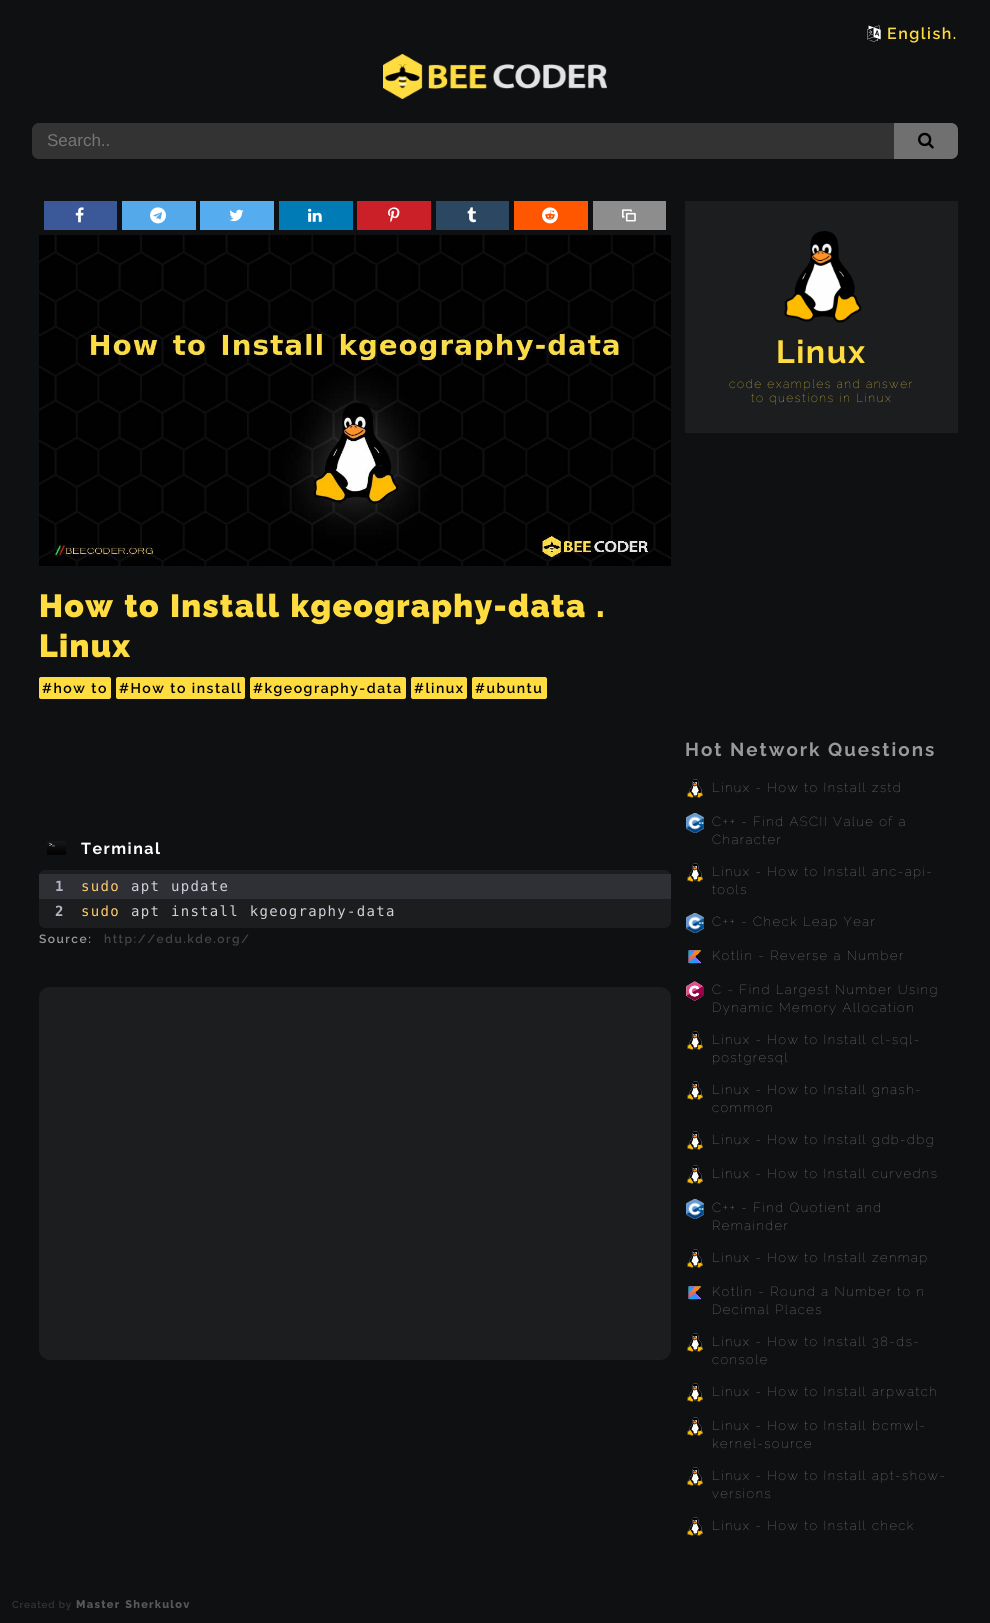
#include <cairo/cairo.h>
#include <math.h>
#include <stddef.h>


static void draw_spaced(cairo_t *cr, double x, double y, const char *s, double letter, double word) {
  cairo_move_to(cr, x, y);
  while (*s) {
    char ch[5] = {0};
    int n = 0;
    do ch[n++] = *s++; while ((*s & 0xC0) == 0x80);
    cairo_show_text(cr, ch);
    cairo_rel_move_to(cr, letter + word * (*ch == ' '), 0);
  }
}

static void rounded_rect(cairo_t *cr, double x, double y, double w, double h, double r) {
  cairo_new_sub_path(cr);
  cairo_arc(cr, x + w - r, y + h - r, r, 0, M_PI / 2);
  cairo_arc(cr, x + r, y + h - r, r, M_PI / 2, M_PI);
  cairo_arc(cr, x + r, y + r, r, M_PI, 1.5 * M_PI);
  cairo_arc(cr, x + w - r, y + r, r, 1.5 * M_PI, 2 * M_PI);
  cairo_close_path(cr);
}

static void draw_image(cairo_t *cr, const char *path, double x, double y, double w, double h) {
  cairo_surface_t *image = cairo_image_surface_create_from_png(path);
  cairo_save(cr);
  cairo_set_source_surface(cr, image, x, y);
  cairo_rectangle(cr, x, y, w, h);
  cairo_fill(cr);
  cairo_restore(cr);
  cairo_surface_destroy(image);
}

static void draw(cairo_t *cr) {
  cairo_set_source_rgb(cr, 15 / 255.0, 16 / 255.0, 18 / 255.0);
  cairo_paint(cr);
  draw_image(cr, "images/1.png", 867, 25, 14, 17);
  draw_image(cr, "images/2.png", 383, 54, 224, 45);
  cairo_set_source_rgb(cr, 51 / 255.0, 51 / 255.0, 51 / 255.0);
  rounded_rect(cr, 32, 123, 926, 36, 7);
  cairo_fill(cr);
  cairo_set_source_rgba(cr, 230 / 255.0, 230 / 255.0, 230 / 255.0, 0.34);
  cairo_new_path(cr);
  cairo_move_to(cr, 894, 123);
  cairo_line_to(cr, 951, 123);
  cairo_curve_to(cr, 955, 123, 958, 126, 958, 130);
  cairo_line_to(cr, 958, 152);
  cairo_curve_to(cr, 958, 156, 955, 159, 951, 159);
  cairo_line_to(cr, 894, 159);
  cairo_close_path(cr);
  cairo_fill(cr);
  draw_image(cr, "images/3.png", 918, 132, 16, 17);
  cairo_set_source_rgb(cr, 59 / 255.0, 89 / 255.0, 152 / 255.0);
  cairo_rectangle(cr, 44, 201, 73, 29);
  cairo_fill(cr);
  draw_image(cr, "images/4.png", 75, 207, 9, 16);
  cairo_set_source_rgb(cr, 84 / 255.0, 169 / 255.0, 235 / 255.0);
  cairo_rectangle(cr, 122, 201, 74, 29);
  cairo_fill(cr);
  draw_image(cr, "images/5.png", 150, 207, 16, 17);
  cairo_set_source_rgb(cr, 85 / 255.0, 172 / 255.0, 238 / 255.0);
  cairo_rectangle(cr, 200, 201, 74, 29);
  cairo_fill(cr);
  draw_image(cr, "images/6.png", 229, 209, 15, 13);
  cairo_set_source_rgb(cr, 0, 123 / 255.0, 181 / 255.0);
  cairo_rectangle(cr, 279, 201, 74, 29);
  cairo_fill(cr);
  draw_image(cr, "images/7.png", 308, 208, 14, 14);
  cairo_set_source_rgb(cr, 203 / 255.0, 32 / 255.0, 39 / 255.0);
  cairo_rectangle(cr, 357, 201, 74, 29);
  cairo_fill(cr);
  draw_image(cr, "images/8.png", 388, 207, 12, 16);
  cairo_set_source_rgb(cr, 44 / 255.0, 71 / 255.0, 98 / 255.0);
  cairo_rectangle(cr, 436, 201, 73, 29);
  cairo_fill(cr);
  draw_image(cr, "images/9.png", 467, 207, 10, 16);
  cairo_set_source_rgb(cr, 1, 87 / 255.0, 0);
  cairo_rectangle(cr, 514, 201, 74, 29);
  cairo_fill(cr);
  draw_image(cr, "images/10.png", 542, 207, 16, 17);
  cairo_set_source_rgb(cr, 141 / 255.0, 141 / 255.0, 141 / 255.0);
  cairo_rectangle(cr, 593, 201, 73, 29);
  cairo_fill(cr);
  draw_image(cr, "images/11.png", 622, 209, 14, 13);
  draw_image(cr, "images/12.png", 39, 235, 632, 331);
  cairo_set_source_rgb(cr, 1, 221 / 255.0, 64 / 255.0);
  rounded_rect(cr, 39, 677, 72, 22, 2);
  cairo_fill(cr);
  rounded_rect(cr, 116, 677, 129, 22, 2);
  cairo_fill(cr);
  rounded_rect(cr, 250, 677, 156, 22, 2);
  cairo_fill(cr);
  rounded_rect(cr, 411, 677, 56, 22, 2);
  cairo_fill(cr);
  rounded_rect(cr, 472, 677, 75, 22, 2);
  cairo_fill(cr);
  draw_image(cr, "images/13.png", 47, 841, 19, 14);
  cairo_set_source_rgb(cr, 28 / 255.0, 29 / 255.0, 31 / 255.0);
  rounded_rect(cr, 39, 870, 632, 58, 7);
  cairo_fill(cr);
  cairo_new_path(cr);
  cairo_move_to(cr, 46, 870);
  cairo_line_to(cr, 77, 870);
  cairo_line_to(cr, 77, 928);
  cairo_line_to(cr, 46, 928);
  cairo_curve_to(cr, 42, 928, 39, 925, 39, 921);
  cairo_line_to(cr, 39, 877);
  cairo_curve_to(cr, 39, 873, 42, 870, 46, 870);
  cairo_close_path(cr);
  cairo_fill(cr);
  cairo_set_source_rgba(cr, 77 / 255.0, 80 / 255.0, 92 / 255.0, 0.38);
  cairo_rectangle(cr, 39, 874, 38, 25);
  cairo_fill(cr);
  cairo_rectangle(cr, 77, 874, 594, 25);
  cairo_fill(cr);
  cairo_set_source_rgb(cr, 28 / 255.0, 29 / 255.0, 31 / 255.0);
  rounded_rect(cr, 39, 987, 632, 373, 11);
  cairo_fill(cr);
  cairo_rectangle(cr, 685, 201, 273, 232);
  cairo_fill(cr);
  draw_image(cr, "images/14.png", 784, 231, 78, 92);
  draw_image(cr, "images/15.png", 687, 779, 16, 19);
  draw_image(cr, "images/16.png", 686, 813, 18, 20);
  draw_image(cr, "images/15.png", 687, 863, 16, 19);
  draw_image(cr, "images/16.png", 686, 913, 18, 20);
  draw_image(cr, "images/17.png", 688, 950, 14, 14);
  draw_image(cr, "images/18.png", 686, 981, 18, 20);
  draw_image(cr, "images/15.png", 687, 1031, 16, 19);
  draw_image(cr, "images/15.png", 687, 1081, 16, 19);
  draw_image(cr, "images/15.png", 687, 1131, 16, 19);
  draw_image(cr, "images/15.png", 687, 1165, 16, 19);
  draw_image(cr, "images/16.png", 686, 1199, 18, 20);
  draw_image(cr, "images/15.png", 687, 1249, 16, 19);
  draw_image(cr, "images/17.png", 688, 1286, 14, 14);
  draw_image(cr, "images/15.png", 687, 1333, 16, 19);
  draw_image(cr, "images/15.png", 687, 1383, 16, 19);
  draw_image(cr, "images/15.png", 687, 1417, 16, 19);
  draw_image(cr, "images/15.png", 687, 1467, 16, 19);
  draw_image(cr, "images/19.png", 687, 1517, 16, 19);
  cairo_select_font_face(cr, "Raleway SemiBold", CAIRO_FONT_SLANT_NORMAL, CAIRO_FONT_WEIGHT_NORMAL);
  cairo_set_font_size(cr, 16);
  cairo_set_source_rgb(cr, 1, 221 / 255.0, 64 / 255.0);
  draw_spaced(cr, 887, 39, "English.", 1.5, 0);
  cairo_select_font_face(cr, "Liberation Sans", CAIRO_FONT_SLANT_NORMAL, CAIRO_FONT_WEIGHT_NORMAL);
  cairo_set_font_size(cr, 17);
  cairo_set_source_rgb(cr, 117 / 255.0, 117 / 255.0, 117 / 255.0);
  cairo_move_to(cr, 47, 146);
  cairo_show_text(cr, "Search..");
  cairo_select_font_face(cr, "Raleway Black", CAIRO_FONT_SLANT_NORMAL, CAIRO_FONT_WEIGHT_NORMAL);
  cairo_set_font_size(cr, 32);
  cairo_set_source_rgb(cr, 1, 221 / 255.0, 64 / 255.0);
  draw_spaced(cr, 39, 617, "How to Install kgeography-data .", 1.3, 1.5);
  draw_spaced(cr, 39, 657, "Linux", 1.3, 0);
  cairo_select_font_face(cr, "Raleway SemiBold", CAIRO_FONT_SLANT_NORMAL, CAIRO_FONT_WEIGHT_NORMAL);
  cairo_set_font_size(cr, 14);
  cairo_set_source_rgb(cr, 0, 0, 0);
  draw_spaced(cr, 42, 693, "#how to", 1.5, 0);
  draw_spaced(cr, 119, 693, "#How to install", 1.5, 0);
  draw_spaced(cr, 253, 693, "#kgeography-data", 1.5, 0);
  draw_spaced(cr, 414, 693, "#linux", 1.5, 0);
  draw_spaced(cr, 475, 693, "#ubuntu", 1.5, 0);
  cairo_select_font_face(cr, "Raleway", CAIRO_FONT_SLANT_NORMAL, CAIRO_FONT_WEIGHT_BOLD);
  cairo_set_font_size(cr, 16);
  cairo_set_source_rgb(cr, 1, 1, 1);
  draw_spaced(cr, 81, 854, "Terminal", 1.5, 0);
  cairo_select_font_face(cr, "DejaVu Sans Mono", CAIRO_FONT_SLANT_NORMAL, CAIRO_FONT_WEIGHT_BOLD);
  cairo_set_font_size(cr, 14);
  cairo_set_source_rgb(cr, 179 / 255.0, 182 / 255.0, 194 / 255.0);
  draw_spaced(cr, 55, 891, "1", 1.5, 0);
  cairo_select_font_face(cr, "DejaVu Sans Mono", CAIRO_FONT_SLANT_NORMAL, CAIRO_FONT_WEIGHT_NORMAL);
  cairo_set_source_rgb(cr, 1, 203 / 255.0, 107 / 255.0);
  draw_spaced(cr, 81, 891, "sudo", 1.3, 0);
  cairo_set_source_rgb(cr, 209 / 255.0, 210 / 255.0, 216 / 255.0);
  draw_spaced(cr, 131, 891, "apt update", 1.3, 1);
  cairo_select_font_face(cr, "DejaVu Sans Mono", CAIRO_FONT_SLANT_NORMAL, CAIRO_FONT_WEIGHT_BOLD);
  cairo_set_source_rgb(cr, 179 / 255.0, 182 / 255.0, 194 / 255.0);
  draw_spaced(cr, 55, 916, "2", 1.5, 0);
  cairo_select_font_face(cr, "DejaVu Sans Mono", CAIRO_FONT_SLANT_NORMAL, CAIRO_FONT_WEIGHT_NORMAL);
  cairo_set_source_rgb(cr, 1, 203 / 255.0, 107 / 255.0);
  draw_spaced(cr, 81, 916, "sudo", 1.3, 0);
  cairo_set_source_rgb(cr, 209 / 255.0, 210 / 255.0, 216 / 255.0);
  draw_spaced(cr, 131, 916, "apt install kgeography-data", 1.3, 1);
  cairo_select_font_face(cr, "Raleway SemiBold", CAIRO_FONT_SLANT_NORMAL, CAIRO_FONT_WEIGHT_NORMAL);
  cairo_set_font_size(cr, 12);
  cairo_set_source_rgb(cr, 153 / 255.0, 153 / 255.0, 153 / 255.0);
  draw_spaced(cr, 39, 943, "Source:", 1.5, 0);
  cairo_set_source_rgb(cr, 68 / 255.0, 68 / 255.0, 68 / 255.0);
  draw_spaced(cr, 104, 943, "http://edu.kde.org/", 1.5, 0);
  cairo_select_font_face(cr, "Raleway", CAIRO_FONT_SLANT_NORMAL, CAIRO_FONT_WEIGHT_BOLD);
  cairo_set_font_size(cr, 32);
  cairo_set_source_rgb(cr, 1, 221 / 255.0, 64 / 255.0);
  draw_spaced(cr, 776, 363, "Linux", 1.5, 0);
  cairo_select_font_face(cr, "Raleway Thin", CAIRO_FONT_SLANT_NORMAL, CAIRO_FONT_WEIGHT_NORMAL);
  cairo_set_font_size(cr, 12);
  draw_spaced(cr, 729, 388, "code examples and answer", 1.5, 0);
  draw_spaced(cr, 751, 402, "to questions in Linux", 1.5, 0);
  cairo_select_font_face(cr, "Raleway", CAIRO_FONT_SLANT_NORMAL, CAIRO_FONT_WEIGHT_BOLD);
  cairo_set_font_size(cr, 18.75);
  cairo_set_source_rgb(cr, 153 / 255.0, 153 / 255.0, 153 / 255.0);
  draw_spaced(cr, 685, 756, "Hot Network Questions", 2, 0);
  cairo_select_font_face(cr, "Raleway Thin", CAIRO_FONT_SLANT_NORMAL, CAIRO_FONT_WEIGHT_NORMAL);
  cairo_set_font_size(cr, 13);
  draw_spaced(cr, 712, 792, "Linux - How to Install zstd", 1.5, 0);
  draw_spaced(cr, 712, 826, "C++ - Find ASCII Value of a", 1.5, 0);
  draw_spaced(cr, 712, 844, "Character", 1.5, 0);
  draw_spaced(cr, 712, 876, "Linux - How to Install anc-api-", 1.5, 0);
  draw_spaced(cr, 712, 894, "tools", 1.5, 0);
  draw_spaced(cr, 712, 926, "C++ - Check Leap Year", 1.5, 0);
  draw_spaced(cr, 712, 960, "Kotlin - Reverse a Number", 1.5, 0);
  draw_spaced(cr, 712, 994, "C - Find Largest Number Using", 1.5, 0);
  draw_spaced(cr, 712, 1012, "Dynamic Memory Allocation", 1.5, 0);
  draw_spaced(cr, 712, 1044, "Linux - How to Install cl-sql-", 1.5, 0);
  draw_spaced(cr, 712, 1062, "postgresql", 1.5, 0);
  draw_spaced(cr, 712, 1094, "Linux - How to Install gnash-", 1.5, 0);
  draw_spaced(cr, 712, 1112, "common", 1.5, 0);
  draw_spaced(cr, 712, 1144, "Linux - How to Install gdb-dbg", 1.5, 0);
  draw_spaced(cr, 712, 1178, "Linux - How to Install curvedns", 1.5, 0);
  draw_spaced(cr, 712, 1212, "C++ - Find Quotient and", 1.5, 0);
  draw_spaced(cr, 712, 1230, "Remainder", 1.5, 0);
  draw_spaced(cr, 712, 1262, "Linux - How to Install zenmap", 1.5, 0);
  draw_spaced(cr, 712, 1296, "Kotlin - Round a Number to n", 1.5, 0);
  draw_spaced(cr, 712, 1314, "Decimal Places", 1.5, 0);
  draw_spaced(cr, 712, 1346, "Linux - How to Install 38-ds-", 1.5, 0);
  draw_spaced(cr, 712, 1364, "console", 1.5, 0);
  draw_spaced(cr, 712, 1396, "Linux - How to Install arpwatch", 1.5, 0);
  draw_spaced(cr, 712, 1430, "Linux - How to Install bcmwl-", 1.5, 0);
  draw_spaced(cr, 712, 1448, "kernel-source", 1.5, 0);
  draw_spaced(cr, 712, 1480, "Linux - How to Install apt-show-", 1.5, 0);
  draw_spaced(cr, 712, 1498, "versions", 1.5, 0);
  draw_spaced(cr, 712, 1530, "Linux - How to Install check", 1.5, 0);
  cairo_select_font_face(cr, "Raleway SemiBold", CAIRO_FONT_SLANT_NORMAL, CAIRO_FONT_WEIGHT_NORMAL);
  cairo_set_font_size(cr, 10);
  cairo_set_source_rgb(cr, 51 / 255.0, 52 / 255.0, 54 / 255.0);
  draw_spaced(cr, 12, 1608, "Created by", 0.75, 0);
  cairo_select_font_face(cr, "Raleway ExtraBold", CAIRO_FONT_SLANT_NORMAL, CAIRO_FONT_WEIGHT_NORMAL);
  cairo_set_font_size(cr, 11);
  cairo_set_source_rgb(cr, 87 / 255.0, 88 / 255.0, 89 / 255.0);
  draw_spaced(cr, 76, 1608, "Master Sherkulov", 1.25, 1);
}

int main(void) {
  cairo_surface_t *surface = cairo_image_surface_create(CAIRO_FORMAT_RGB24, 990, 1623);
  cairo_t *cr = cairo_create(surface);
  cairo_font_options_t *options = cairo_font_options_create();
  cairo_font_options_set_hint_metrics(options, CAIRO_HINT_METRICS_OFF);
  cairo_font_options_set_hint_style(options, CAIRO_HINT_STYLE_NONE);
  cairo_set_font_options(cr, options);
  cairo_set_miter_limit(cr, 4);
  draw(cr);
  cairo_surface_write_to_png(surface, "out.png");
  cairo_font_options_destroy(options);
  cairo_destroy(cr);
  cairo_surface_destroy(surface);
  return 0;
}
